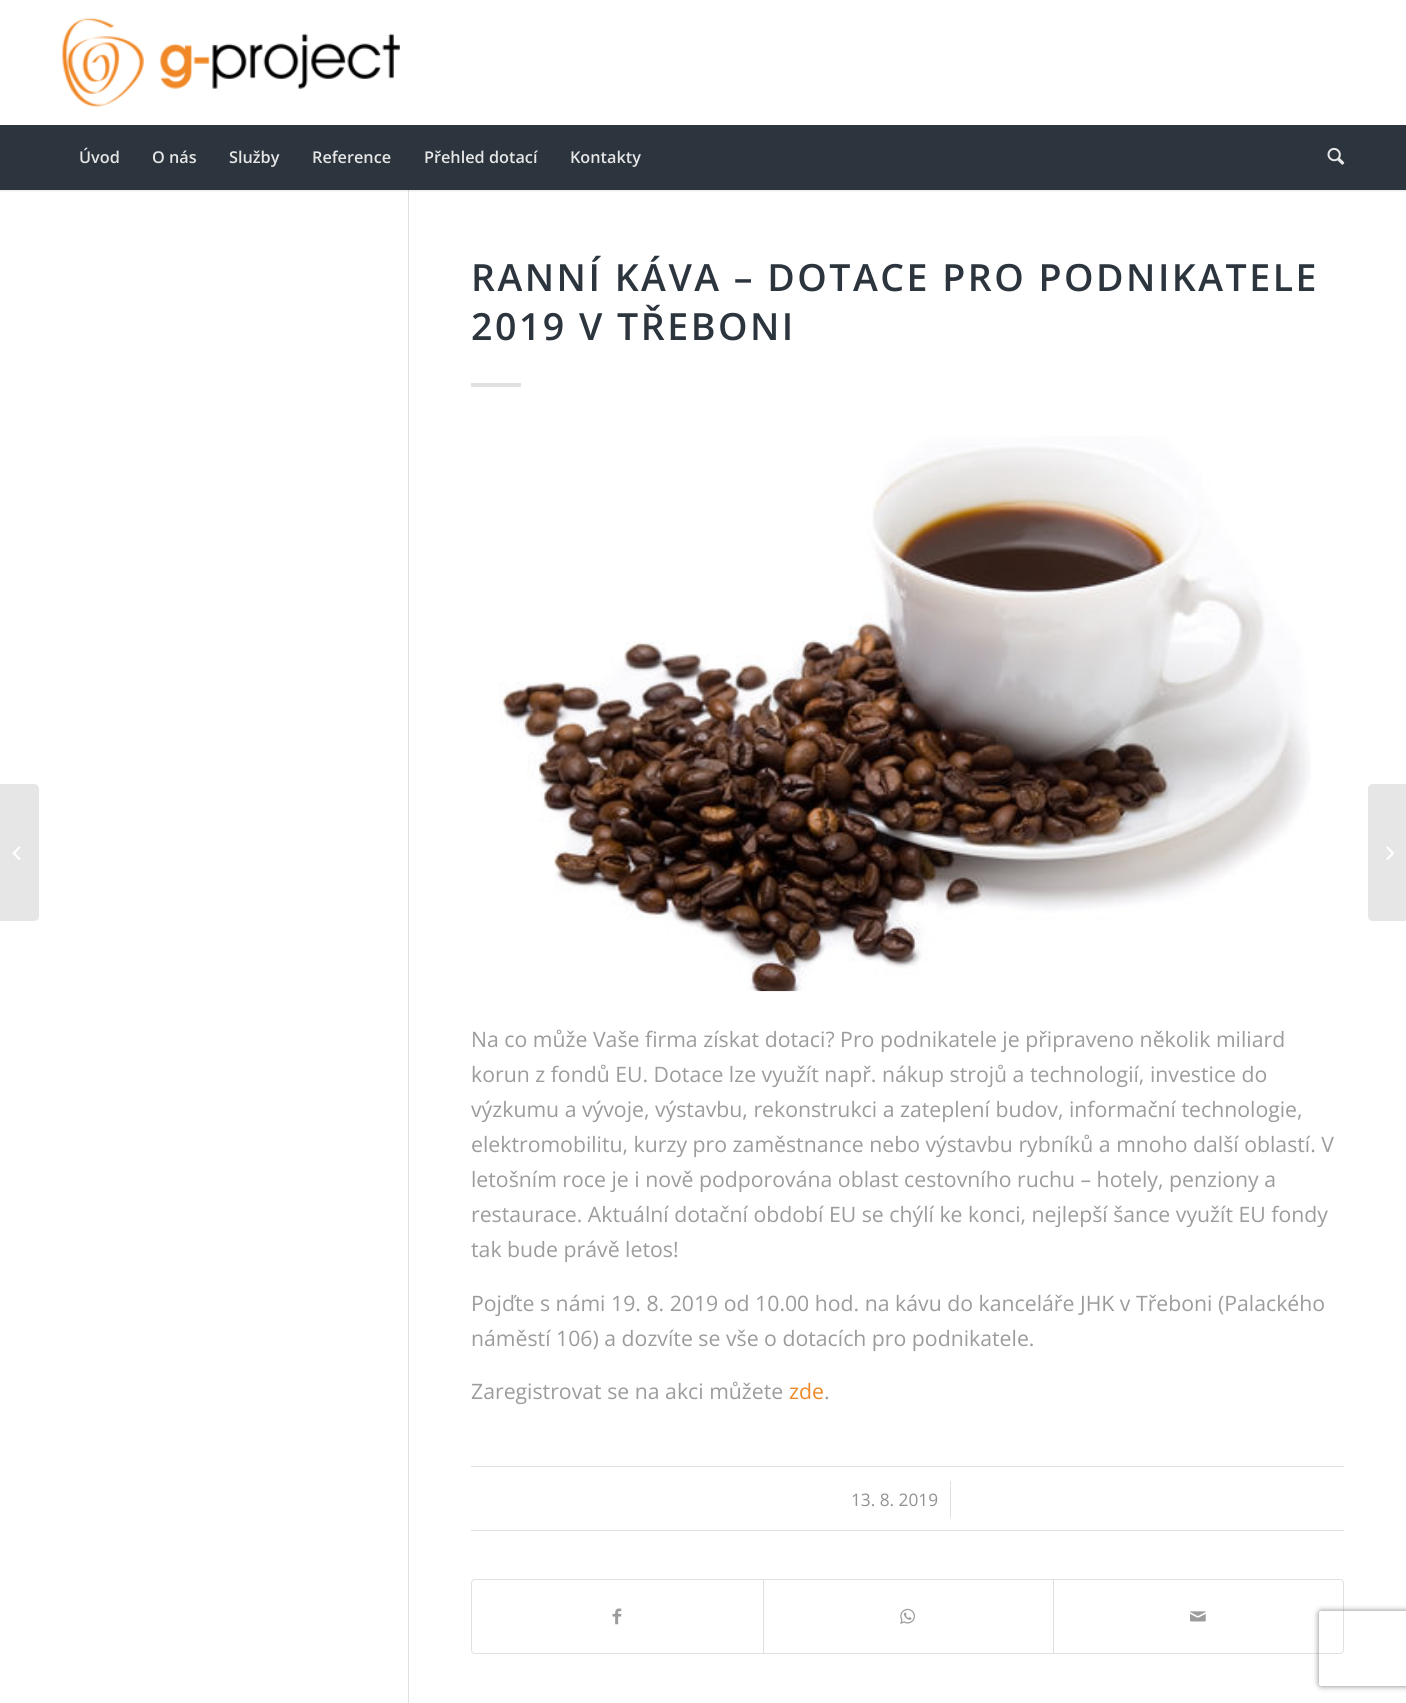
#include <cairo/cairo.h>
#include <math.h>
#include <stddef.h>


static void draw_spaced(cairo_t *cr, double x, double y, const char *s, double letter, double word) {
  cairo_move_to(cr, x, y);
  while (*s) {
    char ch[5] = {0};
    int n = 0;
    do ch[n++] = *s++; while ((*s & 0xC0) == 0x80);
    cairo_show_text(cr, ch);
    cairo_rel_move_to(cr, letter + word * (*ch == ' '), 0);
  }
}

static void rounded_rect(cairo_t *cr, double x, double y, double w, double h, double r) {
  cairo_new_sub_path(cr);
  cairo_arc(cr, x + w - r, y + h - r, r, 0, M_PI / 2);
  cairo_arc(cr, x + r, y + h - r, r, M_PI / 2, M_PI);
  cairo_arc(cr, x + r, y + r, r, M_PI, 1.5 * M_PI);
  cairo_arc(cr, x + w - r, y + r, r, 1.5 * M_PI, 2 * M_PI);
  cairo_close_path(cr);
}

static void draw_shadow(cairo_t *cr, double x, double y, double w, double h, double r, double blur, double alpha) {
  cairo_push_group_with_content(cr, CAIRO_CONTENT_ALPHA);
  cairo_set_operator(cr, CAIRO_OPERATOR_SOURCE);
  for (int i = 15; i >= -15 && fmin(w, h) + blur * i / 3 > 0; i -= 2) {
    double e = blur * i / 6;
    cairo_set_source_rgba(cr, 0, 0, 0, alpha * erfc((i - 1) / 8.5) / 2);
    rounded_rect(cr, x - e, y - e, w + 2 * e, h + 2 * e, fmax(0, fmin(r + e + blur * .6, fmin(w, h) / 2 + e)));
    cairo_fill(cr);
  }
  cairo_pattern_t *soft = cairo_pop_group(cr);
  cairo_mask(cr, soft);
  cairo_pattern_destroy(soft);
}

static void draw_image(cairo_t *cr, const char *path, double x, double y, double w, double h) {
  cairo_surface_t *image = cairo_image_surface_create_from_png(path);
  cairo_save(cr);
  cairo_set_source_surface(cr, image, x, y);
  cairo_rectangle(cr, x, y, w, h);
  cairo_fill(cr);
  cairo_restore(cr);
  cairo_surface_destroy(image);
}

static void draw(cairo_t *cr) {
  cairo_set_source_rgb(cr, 1, 1, 1);
  cairo_paint(cr);
  cairo_set_source_rgb(cr, 225 / 255.0, 225 / 255.0, 225 / 255.0);
  cairo_rectangle(cr, 408, 190, 1, 1513);
  cairo_fill(cr);
  cairo_set_source_rgb(cr, 0, 0, 0);
  draw_shadow(cr, -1, -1, 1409, 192, 0, 1, 0.1);
  cairo_set_source_rgb(cr, 1, 1, 1);
  cairo_rectangle(cr, 0, 0, 1406, 125);
  cairo_fill(cr);
  draw_image(cr, "images/1.png", 62, 18, 338, 89);
  cairo_set_source_rgb(cr, 44 / 255.0, 53 / 255.0, 61 / 255.0);
  cairo_rectangle(cr, 0, 125, 1406, 65);
  cairo_fill(cr);
  draw_image(cr, "images/2.png", 1327, 147, 18, 18);
  cairo_set_source_rgb(cr, 230 / 255.0, 230 / 255.0, 230 / 255.0);
  cairo_new_path(cr);
  cairo_move_to(cr, 0, 784);
  cairo_line_to(cr, 34, 784);
  cairo_curve_to(cr, 37, 784, 39, 786, 39, 789);
  cairo_line_to(cr, 39, 916);
  cairo_curve_to(cr, 39, 919, 37, 921, 34, 921);
  cairo_line_to(cr, 0, 921);
  cairo_close_path(cr);
  cairo_fill(cr);
  draw_image(cr, "images/3.png", 12, 846, 9, 14);
  cairo_set_source_rgb(cr, 225 / 255.0, 225 / 255.0, 225 / 255.0);
  cairo_rectangle(cr, 471, 383, 50, 4);
  cairo_fill(cr);
  draw_image(cr, "images/4.png", 499, 436, 812, 556);
  cairo_rectangle(cr, 471, 1466, 873, 1);
  cairo_fill(cr);
  cairo_rectangle(cr, 471, 1530, 873, 1);
  cairo_fill(cr);
  cairo_rectangle(cr, 950, 1481, 1, 37);
  cairo_fill(cr);
  rounded_rect(cr, 471.5, 1579.5, 872, 74, 3.5);
  cairo_set_line_width(cr, 1);
  cairo_stroke(cr);
  draw_image(cr, "images/5.png", 612, 1608, 10, 17);
  cairo_rectangle(cr, 763, 1580, 1, 73);
  cairo_fill(cr);
  draw_image(cr, "images/6.png", 900, 1608, 15, 16);
  cairo_rectangle(cr, 1053, 1580, 1, 73);
  cairo_fill(cr);
  draw_image(cr, "images/7.png", 1190, 1611, 16, 11);
  cairo_set_source_rgb(cr, 230 / 255.0, 230 / 255.0, 230 / 255.0);
  cairo_new_path(cr);
  cairo_move_to(cr, 1373, 784);
  cairo_line_to(cr, 1406, 784);
  cairo_line_to(cr, 1406, 921);
  cairo_line_to(cr, 1373, 921);
  cairo_curve_to(cr, 1370, 921, 1368, 919, 1368, 916);
  cairo_line_to(cr, 1368, 789);
  cairo_curve_to(cr, 1368, 786, 1370, 784, 1373, 784);
  cairo_close_path(cr);
  cairo_fill(cr);
  draw_image(cr, "images/8.png", 1386, 846, 8, 14);
  cairo_save(cr);
  cairo_set_fill_rule(cr, CAIRO_FILL_RULE_EVEN_ODD);
  cairo_new_path(cr);
  cairo_move_to(cr, 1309, 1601);
  cairo_line_to(cr, 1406, 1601);
  cairo_line_to(cr, 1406, 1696);
  cairo_line_to(cr, 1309, 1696);
  cairo_close_path(cr);
  cairo_move_to(cr, 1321.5, 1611);
  cairo_line_to(cr, 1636.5, 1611);
  cairo_curve_to(cr, 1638, 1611, 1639, 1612, 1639, 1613.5);
  cairo_line_to(cr, 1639, 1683.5);
  cairo_curve_to(cr, 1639, 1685, 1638, 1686, 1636.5, 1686);
  cairo_line_to(cr, 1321.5, 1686);
  cairo_curve_to(cr, 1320, 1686, 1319, 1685, 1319, 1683.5);
  cairo_line_to(cr, 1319, 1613.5);
  cairo_curve_to(cr, 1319, 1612, 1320, 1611, 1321.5, 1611);
  cairo_close_path(cr);
  cairo_clip(cr);
  cairo_set_source_rgb(cr, 128 / 255.0, 128 / 255.0, 128 / 255.0);
  draw_shadow(cr, 1319, 1611, 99, 75, 2.5, 3, 1);
  cairo_restore(cr);
  cairo_select_font_face(cr, "Open Sans SemiBold", CAIRO_FONT_SLANT_NORMAL, CAIRO_FONT_WEIGHT_NORMAL);
  cairo_set_font_size(cr, 16.25);
  cairo_move_to(cr, 79, 163);
  cairo_show_text(cr, "Úvod");
  cairo_move_to(cr, 152, 163);
  cairo_show_text(cr, "O nás");
  cairo_move_to(cr, 229, 163);
  cairo_show_text(cr, "Služby");
  cairo_move_to(cr, 312, 163);
  cairo_show_text(cr, "Reference");
  cairo_move_to(cr, 424, 163);
  cairo_show_text(cr, "Přehled dotací");
  cairo_move_to(cr, 570, 163);
  cairo_show_text(cr, "Kontakty");
  cairo_set_font_size(cr, 37.5);
  cairo_set_source_rgb(cr, 44 / 255.0, 53 / 255.0, 61 / 255.0);
  draw_spaced(cr, 471, 291, "RANNÍ KÁVA – DOTACE PRO PODNIKATELE", 2.5, 0);
  draw_spaced(cr, 471, 340, "2019 V TŘEBONI", 2.5, 0);
  cairo_select_font_face(cr, "Open Sans", CAIRO_FONT_SLANT_NORMAL, CAIRO_FONT_WEIGHT_NORMAL);
  cairo_set_font_size(cr, 21.25);
  cairo_set_source_rgb(cr, 156 / 255.0, 156 / 255.0, 156 / 255.0);
  cairo_move_to(cr, 471, 1047);
  cairo_show_text(cr, "Na co může Vaše firma získat dotaci? Pro podnikatele je připraveno několik miliard");
  cairo_move_to(cr, 471, 1082);
  cairo_show_text(cr, "korun z fondů EU. Dotace lze využít např. nákup strojů a technologií, investice do");
  cairo_move_to(cr, 471, 1117);
  cairo_show_text(cr, "výzkumu a vývoje, výstavbu, rekonstrukci a zateplení budov, informační technologie,");
  cairo_move_to(cr, 471, 1152);
  cairo_show_text(cr, "elektromobilitu, kurzy pro zaměstnance nebo výstavbu rybníků a mnoho další oblastí. V");
  cairo_move_to(cr, 471, 1187);
  cairo_show_text(cr, "letošním roce je i nově podporována oblast cestovního ruchu – hotely, penziony a");
  cairo_move_to(cr, 471, 1222);
  cairo_show_text(cr, "restaurace. Aktuální dotační období EU se chýlí ke konci, nejlepší šance využít EU fondy");
  cairo_move_to(cr, 471, 1257);
  cairo_show_text(cr, "tak bude právě letos!");
  cairo_move_to(cr, 471, 1311);
  cairo_show_text(cr, "Pojďte s námi 19. 8. 2019 od 10.00 hod. na kávu do kanceláře JHK v Třeboni (Palackého");
  cairo_move_to(cr, 471, 1346);
  cairo_show_text(cr, "náměstí 106) a dozvíte se vše o dotacích pro podnikatele.");
  cairo_move_to(cr, 471, 1399);
  cairo_show_text(cr, "Zaregistrovat se na akci můžete");
  cairo_set_source_rgb(cr, 240 / 255.0, 136 / 255.0, 39 / 255.0);
  cairo_move_to(cr, 789, 1399);
  cairo_show_text(cr, "zde");
  cairo_set_source_rgb(cr, 156 / 255.0, 156 / 255.0, 156 / 255.0);
  cairo_move_to(cr, 824, 1399);
  cairo_show_text(cr, ".");
  cairo_set_font_size(cr, 17.25);
  cairo_set_source_rgb(cr, 145 / 255.0, 145 / 255.0, 145 / 255.0);
  cairo_move_to(cr, 851, 1506);
  cairo_show_text(cr, "13. 8. 2019");
}

int main(void) {
  cairo_surface_t *surface = cairo_image_surface_create(CAIRO_FORMAT_RGB24, 1406, 1703);
  cairo_t *cr = cairo_create(surface);
  cairo_font_options_t *options = cairo_font_options_create();
  cairo_font_options_set_hint_metrics(options, CAIRO_HINT_METRICS_OFF);
  cairo_font_options_set_hint_style(options, CAIRO_HINT_STYLE_NONE);
  cairo_set_font_options(cr, options);
  cairo_set_miter_limit(cr, 4);
  draw(cr);
  cairo_surface_write_to_png(surface, "out.png");
  cairo_font_options_destroy(options);
  cairo_destroy(cr);
  cairo_surface_destroy(surface);
  return 0;
}
